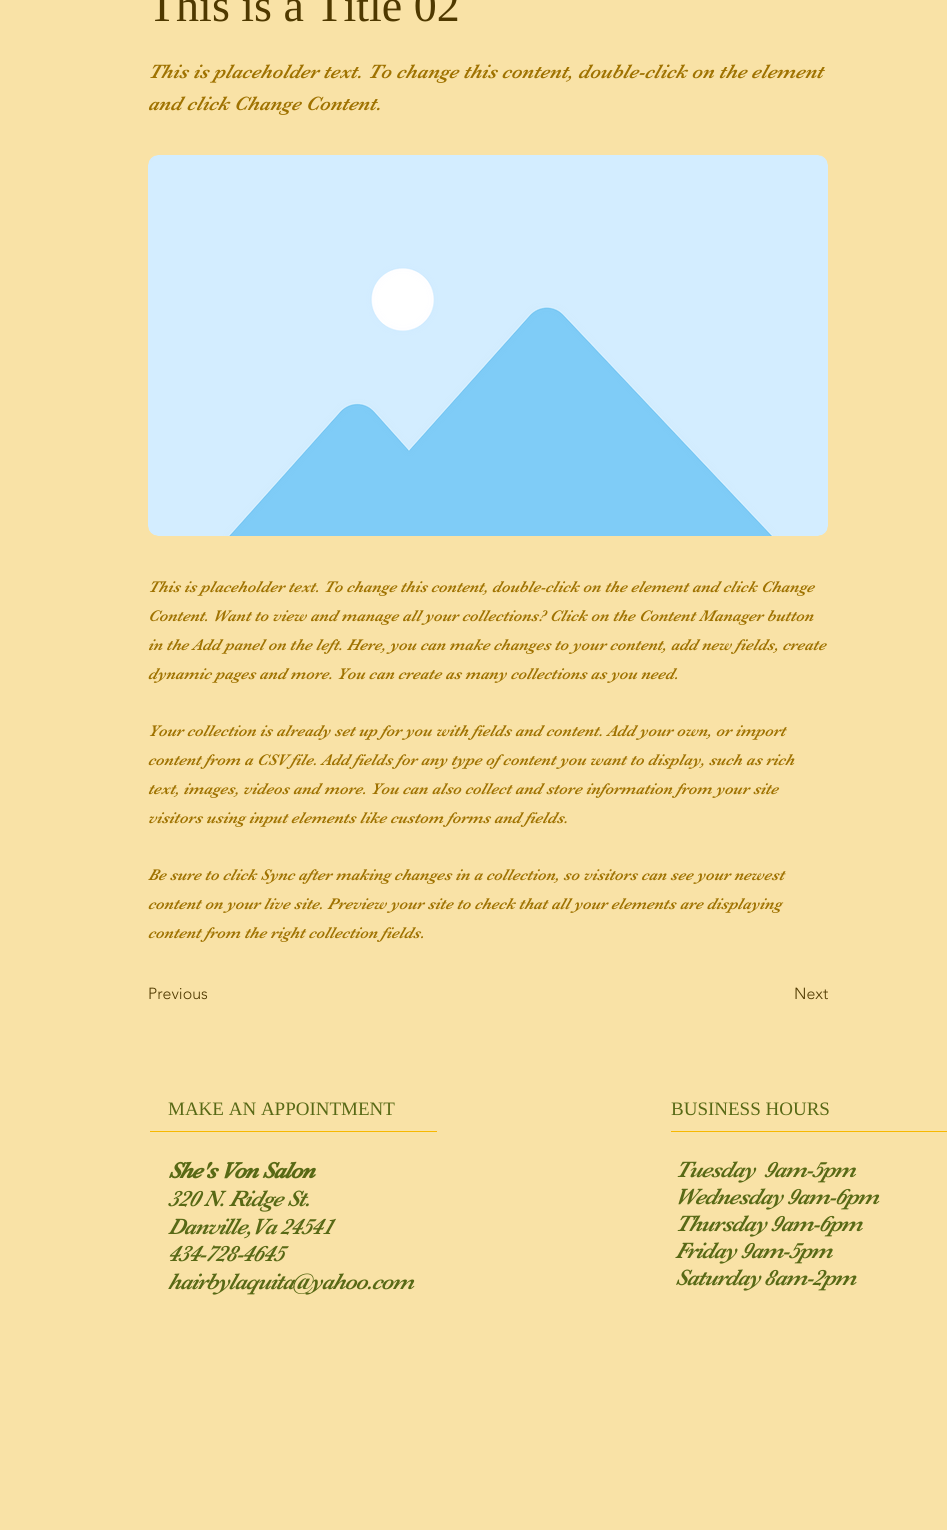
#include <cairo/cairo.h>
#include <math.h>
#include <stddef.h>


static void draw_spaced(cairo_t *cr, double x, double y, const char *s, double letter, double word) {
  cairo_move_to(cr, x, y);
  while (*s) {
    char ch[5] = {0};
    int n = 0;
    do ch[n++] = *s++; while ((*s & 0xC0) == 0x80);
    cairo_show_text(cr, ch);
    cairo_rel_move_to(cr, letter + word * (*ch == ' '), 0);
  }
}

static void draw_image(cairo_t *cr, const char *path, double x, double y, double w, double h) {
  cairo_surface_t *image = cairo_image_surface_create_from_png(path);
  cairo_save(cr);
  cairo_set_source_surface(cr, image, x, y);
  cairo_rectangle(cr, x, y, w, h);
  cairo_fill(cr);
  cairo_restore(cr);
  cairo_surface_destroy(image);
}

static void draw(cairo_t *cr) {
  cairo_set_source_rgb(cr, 249 / 255.0, 226 / 255.0, 166 / 255.0);
  cairo_paint(cr);
  draw_image(cr, "images/1.png", 148, 155, 680, 381);
  cairo_set_source_rgb(cr, 247 / 255.0, 184 / 255.0, 0);
  cairo_rectangle(cr, 150, 1131, 287, 1);
  cairo_fill(cr);
  cairo_rectangle(cr, 671, 1131, 276, 1);
  cairo_fill(cr);
  cairo_select_font_face(cr, "Liberation Serif", CAIRO_FONT_SLANT_NORMAL, CAIRO_FONT_WEIGHT_NORMAL);
  cairo_set_font_size(cr, 46);
  cairo_set_source_rgb(cr, 79 / 255.0, 57 / 255.0, 0);
  cairo_move_to(cr, 148, 21);
  cairo_show_text(cr, "This is a Title 02");
  cairo_select_font_face(cr, "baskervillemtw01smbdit", CAIRO_FONT_SLANT_ITALIC, CAIRO_FONT_WEIGHT_NORMAL);
  cairo_set_font_size(cr, 20);
  cairo_set_source_rgb(cr, 159 / 255.0, 114 / 255.0, 0);
  cairo_move_to(cr, 148, 78);
  cairo_show_text(cr, "This is placeholder text. To change this content, double-click on the element");
  cairo_move_to(cr, 148, 110);
  cairo_show_text(cr, "and click Change Content.");
  cairo_set_font_size(cr, 16);
  cairo_move_to(cr, 148, 592);
  cairo_show_text(cr, "This is placeholder text. To change this content, double-click on the element and click Change");
  cairo_move_to(cr, 148, 621);
  cairo_show_text(cr, "Content. Want to view and manage all your collections? Click on the Content Manager button");
  cairo_move_to(cr, 148, 650);
  cairo_show_text(cr, "in the Add panel on the left. Here, you can make changes to your content, add new fields, create");
  cairo_move_to(cr, 148, 679);
  cairo_show_text(cr, "dynamic pages and more. You can create as many collections as you need.");
  cairo_move_to(cr, 148, 736);
  cairo_show_text(cr, "Your collection is already set up for you with fields and content. Add your own, or import");
  cairo_move_to(cr, 148, 765);
  cairo_show_text(cr, "content from a CSV file. Add fields for any type of content you want to display, such as rich");
  cairo_move_to(cr, 148, 794);
  cairo_show_text(cr, "text, images, videos and more. You can also collect and store information from your site");
  cairo_move_to(cr, 148, 823);
  cairo_show_text(cr, "visitors using input elements like custom forms and fields.");
  cairo_move_to(cr, 148, 880);
  cairo_show_text(cr, "Be sure to click Sync after making changes in a collection, so visitors can see your newest");
  cairo_move_to(cr, 148, 909);
  cairo_show_text(cr, "content on your live site. Preview your site to check that all your elements are displaying");
  cairo_move_to(cr, 148, 938);
  cairo_show_text(cr, "content from the right collection fields.");
  cairo_select_font_face(cr, "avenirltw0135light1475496 Light", CAIRO_FONT_SLANT_NORMAL, CAIRO_FONT_WEIGHT_NORMAL);
  cairo_set_source_rgb(cr, 79 / 255.0, 57 / 255.0, 0);
  cairo_move_to(cr, 148, 999);
  cairo_show_text(cr, "Previous");
  cairo_move_to(cr, 794, 999);
  cairo_show_text(cr, "Next");
  cairo_select_font_face(cr, "Liberation Serif", CAIRO_FONT_SLANT_NORMAL, CAIRO_FONT_WEIGHT_NORMAL);
  cairo_set_font_size(cr, 19);
  cairo_set_source_rgb(cr, 88 / 255.0, 105 / 255.0, 21 / 255.0);
  cairo_move_to(cr, 168, 1115);
  cairo_show_text(cr, "MAKE AN APPOINTMENT");
  cairo_move_to(cr, 671, 1115);
  cairo_show_text(cr, "BUSINESS HOURS");
  cairo_select_font_face(cr, "baskervillemtw01smbdit", CAIRO_FONT_SLANT_ITALIC, CAIRO_FONT_WEIGHT_BOLD);
  cairo_set_font_size(cr, 23);
  draw_spaced(cr, 168, 1178, "She's Von Salon", -1.15, 0);
  cairo_select_font_face(cr, "baskervillemtw01smbdit", CAIRO_FONT_SLANT_ITALIC, CAIRO_FONT_WEIGHT_NORMAL);
  draw_spaced(cr, 168, 1206, "320 N. Ridge St.", -1.15, 0);
  draw_spaced(cr, 168, 1234, "Danville,Va 24541", -1.15, 0);
  draw_spaced(cr, 168, 1261, "434-728-4645", -1.15, 0);
  draw_spaced(cr, 168, 1289, "hairbylaquita@yahoo.com", -1.15, 0);
  draw_spaced(cr, 675, 1177, "Tuesday  9am-5pm", -1.15, 0);
  draw_spaced(cr, 675, 1204, "Wednesday 9am-6pm", -1.15, 0);
  draw_spaced(cr, 675, 1231, "Thursday 9am-6pm", -1.15, 0);
  draw_spaced(cr, 675, 1258, "Friday 9am-5pm", -1.15, 0);
  draw_spaced(cr, 675, 1285, "Saturday 8am-2pm", -1.15, 0);
}

int main(void) {
  cairo_surface_t *surface = cairo_image_surface_create(CAIRO_FORMAT_RGB24, 947, 1530);
  cairo_t *cr = cairo_create(surface);
  cairo_font_options_t *options = cairo_font_options_create();
  cairo_font_options_set_hint_metrics(options, CAIRO_HINT_METRICS_OFF);
  cairo_font_options_set_hint_style(options, CAIRO_HINT_STYLE_NONE);
  cairo_set_font_options(cr, options);
  cairo_set_miter_limit(cr, 4);
  draw(cr);
  cairo_surface_write_to_png(surface, "out.png");
  cairo_font_options_destroy(options);
  cairo_destroy(cr);
  cairo_surface_destroy(surface);
  return 0;
}
